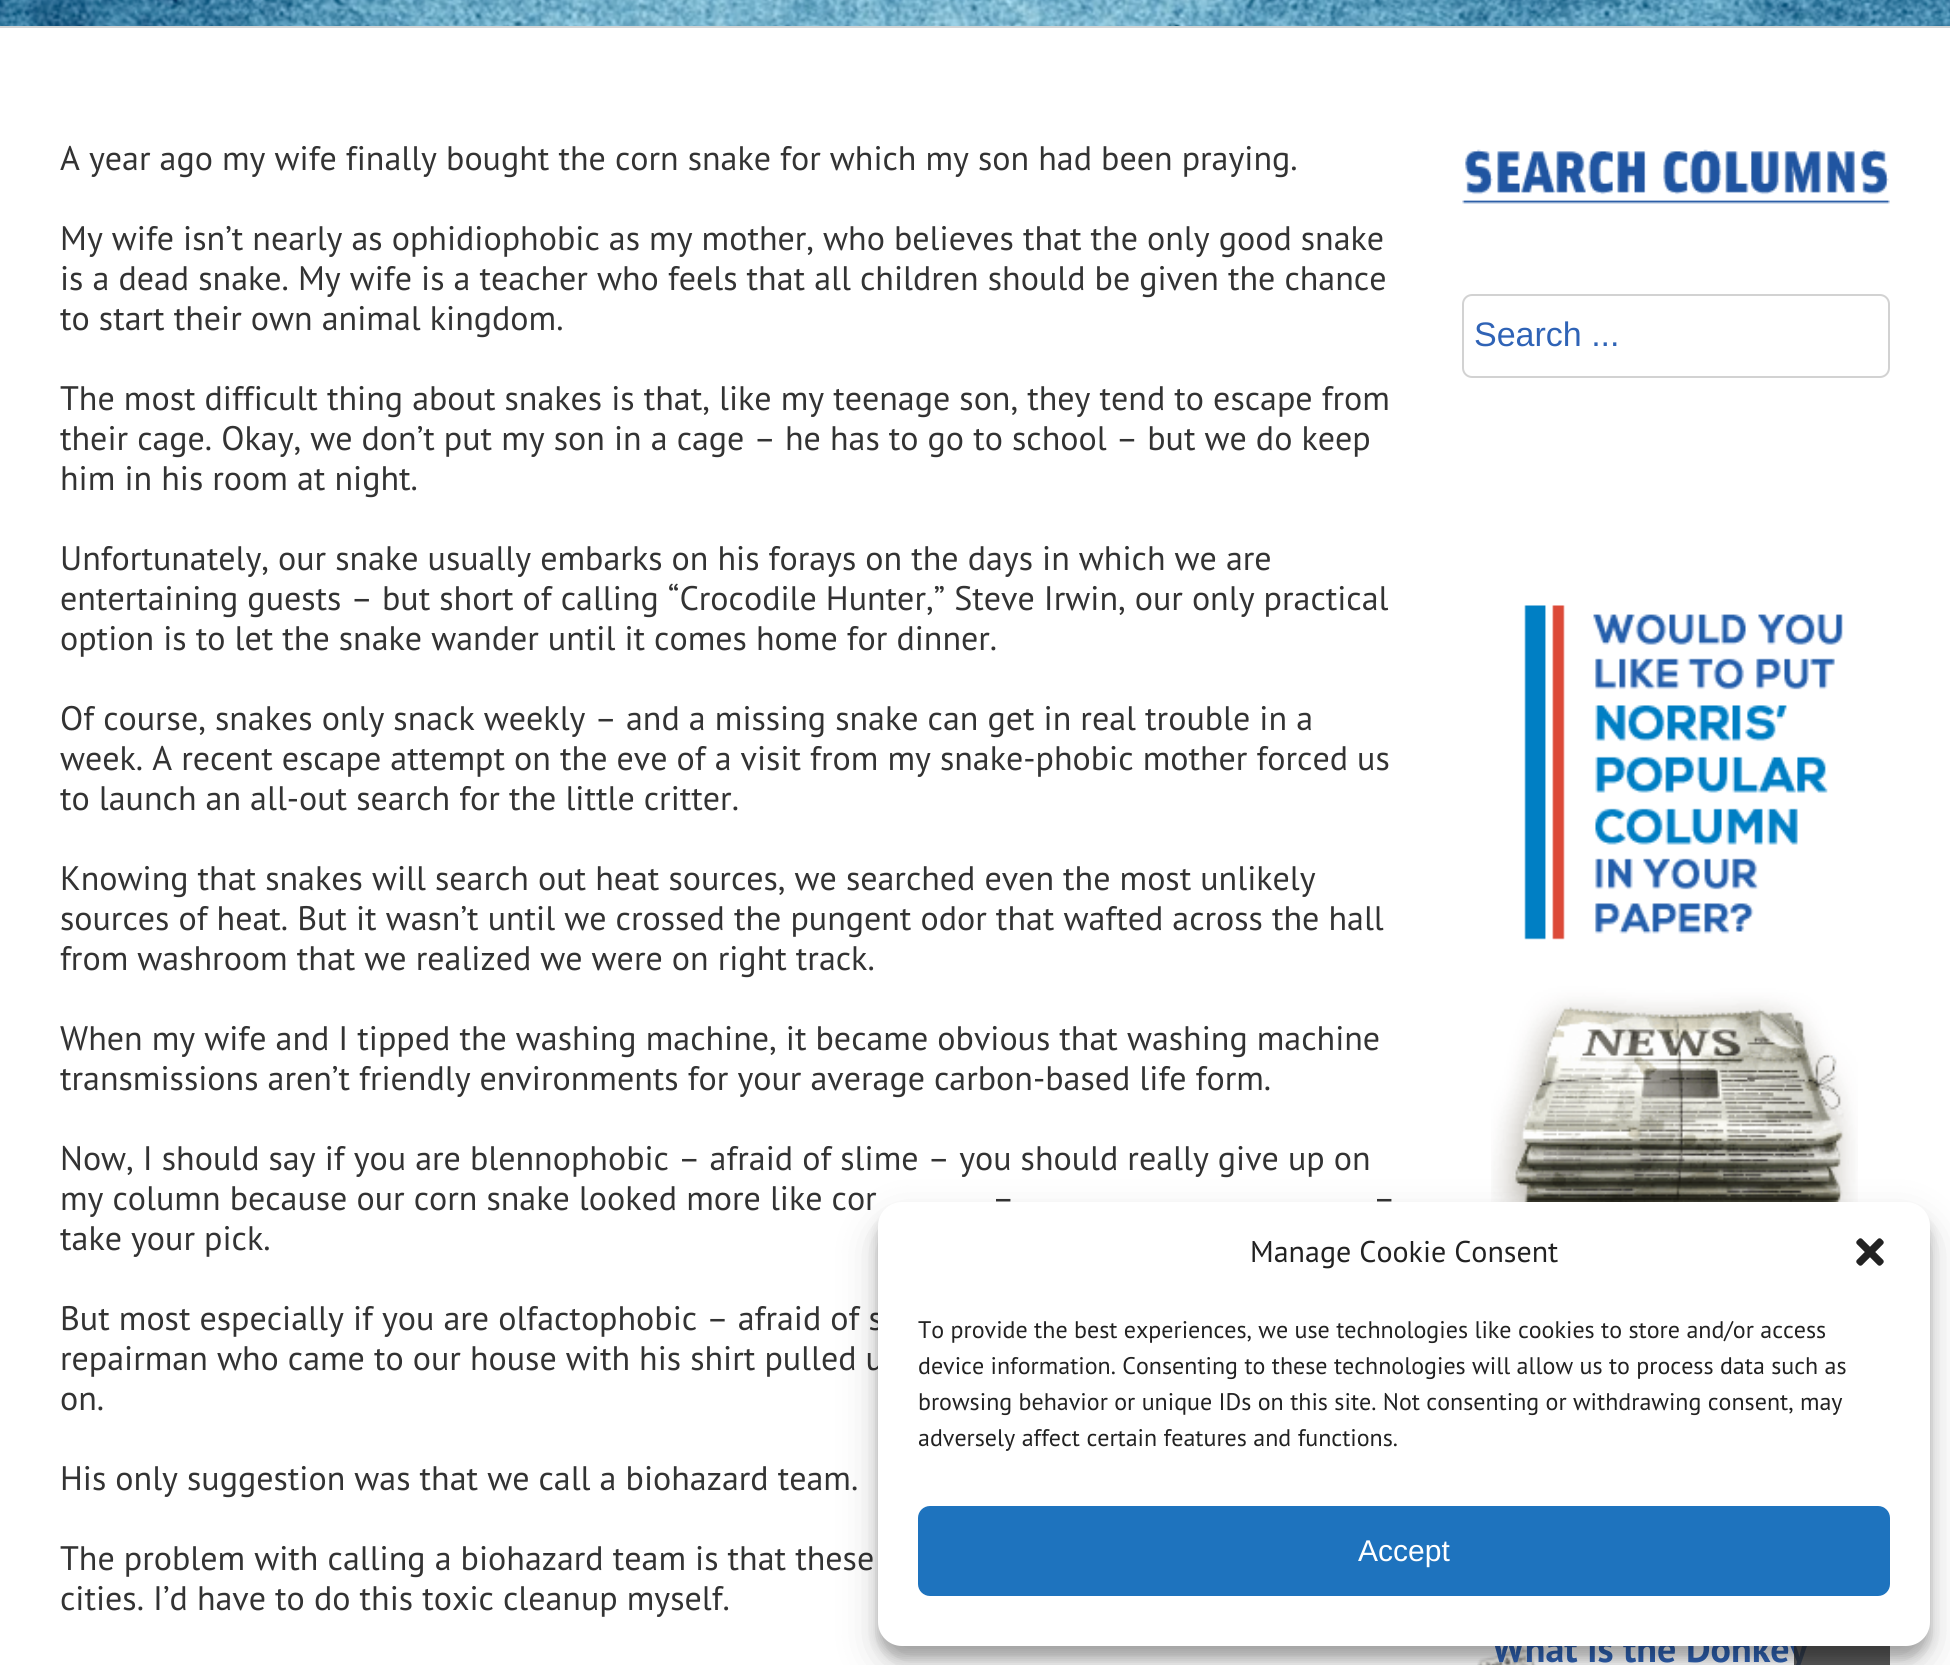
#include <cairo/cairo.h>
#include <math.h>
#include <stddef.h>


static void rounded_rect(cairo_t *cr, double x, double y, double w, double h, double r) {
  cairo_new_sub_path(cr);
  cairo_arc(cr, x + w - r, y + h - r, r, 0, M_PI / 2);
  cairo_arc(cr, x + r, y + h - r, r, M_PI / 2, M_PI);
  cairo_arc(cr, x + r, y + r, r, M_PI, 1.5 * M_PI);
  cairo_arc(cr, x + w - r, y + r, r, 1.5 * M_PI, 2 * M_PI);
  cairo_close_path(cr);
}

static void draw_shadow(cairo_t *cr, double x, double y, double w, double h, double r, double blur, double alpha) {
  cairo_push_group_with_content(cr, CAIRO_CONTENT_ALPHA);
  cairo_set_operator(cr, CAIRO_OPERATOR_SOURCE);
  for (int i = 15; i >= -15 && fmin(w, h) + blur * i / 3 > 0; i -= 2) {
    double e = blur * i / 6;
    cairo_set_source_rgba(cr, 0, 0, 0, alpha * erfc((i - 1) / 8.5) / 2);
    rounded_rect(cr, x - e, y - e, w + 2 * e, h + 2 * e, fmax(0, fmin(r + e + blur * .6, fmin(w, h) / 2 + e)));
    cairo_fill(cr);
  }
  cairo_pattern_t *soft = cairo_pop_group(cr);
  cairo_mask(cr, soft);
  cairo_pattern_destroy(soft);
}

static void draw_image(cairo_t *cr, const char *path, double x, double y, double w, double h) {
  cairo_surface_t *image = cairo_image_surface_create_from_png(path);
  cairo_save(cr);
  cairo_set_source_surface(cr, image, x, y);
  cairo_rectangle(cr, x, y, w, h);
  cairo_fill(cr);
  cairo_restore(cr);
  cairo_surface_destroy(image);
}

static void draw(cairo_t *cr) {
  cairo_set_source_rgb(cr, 1, 1, 1);
  cairo_paint(cr);
  draw_image(cr, "images/1.png", 0, 0, 1950, 26);
  cairo_set_source_rgb(cr, 210 / 255.0, 211 / 255.0, 212 / 255.0);
  cairo_rectangle(cr, 0, 26, 1950, 2);
  cairo_fill(cr);
  draw_image(cr, "images/2.png", 1462, 149, 428, 55);
  rounded_rect(cr, 1463, 295, 426, 82, 9);
  cairo_set_source_rgb(cr, 210 / 255.0, 210 / 255.0, 210 / 255.0);
  cairo_stroke(cr);
  draw_image(cr, "images/3.png", 1491, 605, 367, 597);
  draw_image(cr, "images/4.png", 1477, 1646, 59, 19);
  cairo_select_font_face(cr, "PT Sans", CAIRO_FONT_SLANT_NORMAL, CAIRO_FONT_WEIGHT_NORMAL);
  cairo_set_font_size(cr, 34);
  cairo_set_source_rgb(cr, 51 / 255.0, 51 / 255.0, 51 / 255.0);
  cairo_move_to(cr, 60, 170);
  cairo_show_text(cr, "A year ago my wife finally bought the corn snake for which my son had been praying.");
  cairo_move_to(cr, 60, 250);
  cairo_show_text(cr, "My wife isn’t nearly as ophidiophobic as my mother, who believes that the only good snake");
  cairo_move_to(cr, 60, 290);
  cairo_show_text(cr, "is a dead snake. My wife is a teacher who feels that all children should be given the chance");
  cairo_move_to(cr, 60, 330);
  cairo_show_text(cr, "to start their own animal kingdom.");
  cairo_move_to(cr, 60, 410);
  cairo_show_text(cr, "The most difficult thing about snakes is that, like my teenage son, they tend to escape from");
  cairo_move_to(cr, 60, 450);
  cairo_show_text(cr, "their cage. Okay, we don’t put my son in a cage – he has to go to school – but we do keep");
  cairo_move_to(cr, 60, 490);
  cairo_show_text(cr, "him in his room at night.");
  cairo_move_to(cr, 60, 570);
  cairo_show_text(cr, "Unfortunately, our snake usually embarks on his forays on the days in which we are");
  cairo_move_to(cr, 60, 610);
  cairo_show_text(cr, "entertaining guests – but short of calling “Crocodile Hunter,” Steve Irwin, our only practical");
  cairo_move_to(cr, 60, 650);
  cairo_show_text(cr, "option is to let the snake wander until it comes home for dinner.");
  cairo_move_to(cr, 60, 730);
  cairo_show_text(cr, "Of course, snakes only snack weekly – and a missing snake can get in real trouble in a");
  cairo_move_to(cr, 60, 770);
  cairo_show_text(cr, "week. A recent escape attempt on the eve of a visit from my snake-phobic mother forced us");
  cairo_move_to(cr, 60, 810);
  cairo_show_text(cr, "to launch an all-out search for the little critter.");
  cairo_move_to(cr, 60, 890);
  cairo_show_text(cr, "Knowing that snakes will search out heat sources, we searched even the most unlikely");
  cairo_move_to(cr, 60, 930);
  cairo_show_text(cr, "sources of heat. But it wasn’t until we crossed the pungent odor that wafted across the hall");
  cairo_move_to(cr, 60, 970);
  cairo_show_text(cr, "from washroom that we realized we were on right track.");
  cairo_move_to(cr, 60, 1050);
  cairo_show_text(cr, "When my wife and I tipped the washing machine, it became obvious that washing machine");
  cairo_move_to(cr, 60, 1090);
  cairo_show_text(cr, "transmissions aren’t friendly environments for your average carbon-based life form.");
  cairo_move_to(cr, 60, 1170);
  cairo_show_text(cr, "Now, I should say if you are blennophobic – afraid of slime – you should really give up on");
  cairo_move_to(cr, 60, 1210);
  cairo_show_text(cr, "my column because our corn snake looked more like cor");
  cairo_move_to(cr, 992, 1210);
  cairo_show_text(cr, "–");
  cairo_move_to(cr, 1373, 1210);
  cairo_show_text(cr, "–");
  cairo_move_to(cr, 60, 1250);
  cairo_show_text(cr, "take your pick.");
  cairo_move_to(cr, 60, 1330);
  cairo_show_text(cr, "But most especially if you are olfactophobic – afraid of s");
  cairo_move_to(cr, 60, 1370);
  cairo_show_text(cr, "repairman who came to our house with his shirt pulled u");
  cairo_move_to(cr, 60, 1410);
  cairo_show_text(cr, "on.");
  cairo_move_to(cr, 60, 1490);
  cairo_show_text(cr, "His only suggestion was that we call a biohazard team.");
  cairo_move_to(cr, 60, 1570);
  cairo_show_text(cr, "The problem with calling a biohazard team is that these");
  cairo_move_to(cr, 60, 1610);
  cairo_show_text(cr, "cities. I’d have to do this toxic cleanup myself.");
  cairo_select_font_face(cr, "Liberation Sans", CAIRO_FONT_SLANT_NORMAL, CAIRO_FONT_WEIGHT_NORMAL);
  cairo_set_source_rgb(cr, 47 / 255.0, 99 / 255.0, 182 / 255.0);
  cairo_move_to(cr, 1474, 346);
  cairo_show_text(cr, "Search ...");
  cairo_select_font_face(cr, "PT Sans", CAIRO_FONT_SLANT_NORMAL, CAIRO_FONT_WEIGHT_BOLD);
  cairo_set_font_size(cr, 38);
  cairo_move_to(cr, 1492, 1662);
  cairo_show_text(cr, "What is the Donkey");
  cairo_set_source_rgba(cr, 51 / 255.0, 51 / 255.0, 51 / 255.0, 0.8);
  cairo_rectangle(cr, 1794, 1646, 96, 19);
  cairo_fill(cr);
  cairo_set_source_rgb(cr, 0, 0, 0);
  draw_shadow(cr, 878, 1222, 1052, 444, 24, 20, 0.19);
  draw_shadow(cr, 878, 1214, 1052, 444, 24, 6, 0.23);
  cairo_set_source_rgb(cr, 1, 1, 1);
  rounded_rect(cr, 878, 1202, 1052, 444, 24);
  cairo_fill(cr);
  cairo_select_font_face(cr, "PT Sans", CAIRO_FONT_SLANT_NORMAL, CAIRO_FONT_WEIGHT_NORMAL);
  cairo_set_font_size(cr, 24);
  cairo_set_source_rgb(cr, 34 / 255.0, 34 / 255.0, 34 / 255.0);
  cairo_move_to(cr, 918, 1446);
  cairo_show_text(cr, "adversely affect certain features and functions.");
  cairo_move_to(cr, 918, 1410);
  cairo_show_text(cr, "browsing behavior or unique IDs on this site. Not consenting or withdrawing consent, may");
  cairo_move_to(cr, 918, 1374);
  cairo_show_text(cr, "device information. Consenting to these technologies will allow us to process data such as");
  cairo_move_to(cr, 918, 1338);
  cairo_show_text(cr, "To provide the best experiences, we use technologies like cookies to store and/or access");
  draw_image(cr, "images/5.png", 1856, 1238, 28, 28);
  cairo_set_source_rgb(cr, 30 / 255.0, 115 / 255.0, 190 / 255.0);
  rounded_rect(cr, 919, 1507, 970, 88, 11);
  cairo_fill_preserve(cr);
  cairo_stroke(cr);
  cairo_select_font_face(cr, "Liberation Sans", CAIRO_FONT_SLANT_NORMAL, CAIRO_FONT_WEIGHT_NORMAL);
  cairo_set_font_size(cr, 30);
  cairo_set_source_rgb(cr, 1, 1, 1);
  cairo_move_to(cr, 1358, 1561);
  cairo_show_text(cr, "Accept");
  cairo_select_font_face(cr, "PT Sans", CAIRO_FONT_SLANT_NORMAL, CAIRO_FONT_WEIGHT_NORMAL);
  cairo_set_source_rgb(cr, 34 / 255.0, 34 / 255.0, 34 / 255.0);
  cairo_move_to(cr, 1250, 1262);
  cairo_show_text(cr, "Manage Cookie Consent");
}

int main(void) {
  cairo_surface_t *surface = cairo_image_surface_create(CAIRO_FORMAT_RGB24, 1950, 1665);
  cairo_t *cr = cairo_create(surface);
  cairo_font_options_t *options = cairo_font_options_create();
  cairo_font_options_set_hint_metrics(options, CAIRO_HINT_METRICS_OFF);
  cairo_font_options_set_hint_style(options, CAIRO_HINT_STYLE_NONE);
  cairo_set_font_options(cr, options);
  cairo_set_miter_limit(cr, 4);
  draw(cr);
  cairo_surface_write_to_png(surface, "out.png");
  cairo_font_options_destroy(options);
  cairo_destroy(cr);
  cairo_surface_destroy(surface);
  return 0;
}
